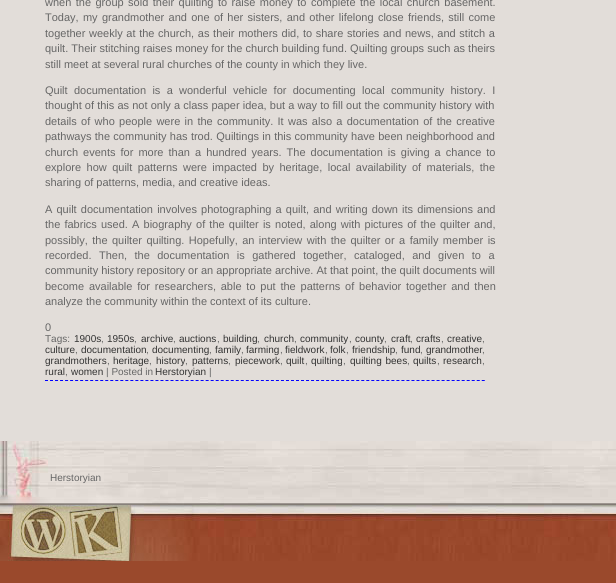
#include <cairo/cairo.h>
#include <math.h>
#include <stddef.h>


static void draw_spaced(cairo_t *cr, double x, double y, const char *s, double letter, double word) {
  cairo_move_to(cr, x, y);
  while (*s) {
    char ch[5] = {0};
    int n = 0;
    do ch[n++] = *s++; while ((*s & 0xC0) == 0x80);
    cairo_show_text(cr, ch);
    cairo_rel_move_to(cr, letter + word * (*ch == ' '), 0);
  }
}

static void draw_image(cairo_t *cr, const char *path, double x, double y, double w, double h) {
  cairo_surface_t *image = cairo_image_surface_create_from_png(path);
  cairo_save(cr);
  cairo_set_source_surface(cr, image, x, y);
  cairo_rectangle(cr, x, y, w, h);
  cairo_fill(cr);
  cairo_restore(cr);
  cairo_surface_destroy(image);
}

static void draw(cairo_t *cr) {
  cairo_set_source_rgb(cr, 154 / 255.0, 73 / 255.0, 44 / 255.0);
  cairo_paint(cr);
  cairo_set_source_rgb(cr, 226 / 255.0, 221 / 255.0, 217 / 255.0);
  cairo_rectangle(cr, 0, 0, 616, 441);
  cairo_fill(cr);
  cairo_new_path(cr);
  cairo_move_to(cr, 45, 380.5);
  cairo_line_to(cr, 485, 380.5);
  cairo_set_source_rgb(cr, 0, 0, 1);
  cairo_set_line_width(cr, 1);
  cairo_set_dash(cr, (double[]){3, 2.02}, 2, 0);
  cairo_stroke(cr);
  draw_image(cr, "images/1.png", 0, 441, 616, 120);
  cairo_select_font_face(cr, "Liberation Sans", CAIRO_FONT_SLANT_NORMAL, CAIRO_FONT_WEIGHT_NORMAL);
  cairo_set_font_size(cr, 11);
  cairo_set_source_rgb(cr, 102 / 255.0, 102 / 255.0, 102 / 255.0);
  draw_spaced(cr, 45, 6, "when the group sold their quilting to raise money to complete the local church basement.", 0, 1.4);
  draw_spaced(cr, 45, 21, "Today, my grandmother and one of her sisters, and other lifelong close friends, still come", 0, 1.25);
  draw_spaced(cr, 45, 37, "together weekly at the church, as their mothers did, to share stories and news, and stitch a", 0, 0.6);
  cairo_move_to(cr, 45, 52);
  cairo_show_text(cr, "quilt. Their stitching raises money for the church building fund. Quilting groups such as theirs");
  cairo_move_to(cr, 45, 68);
  cairo_show_text(cr, "still meet at several rural churches of the county in which they live.");
  draw_spaced(cr, 45, 94, "Quilt documentation is a wonderful vehicle for documenting local community history. I", 0, 3.25);
  draw_spaced(cr, 45, 109, "thought of this as not only a class paper idea, but a way to fill out the community history with", 0, 0.1);
  draw_spaced(cr, 45, 125, "details of who people were in the community. It was also a documentation of the creative", 0, 1.25);
  draw_spaced(cr, 45, 140, "pathways the community has trod. Quiltings in this community have been neighborhood and", 0, 0.25);
  draw_spaced(cr, 45, 156, "church events for more than a hundred years. The documentation is giving a chance to", 0, 2);
  draw_spaced(cr, 45, 171, "explore how quilt patterns were impacted by heritage, local availability of materials, the", 0, 2.4);
  cairo_move_to(cr, 45, 186);
  cairo_show_text(cr, "sharing of patterns, media, and creative ideas.");
  draw_spaced(cr, 45, 213, "A quilt documentation involves photographing a quilt, and writing down its dimensions and", 0, 1.1);
  draw_spaced(cr, 45, 228, "the fabrics used. A biography of the quilter is noted, along with pictures of the quilter and,", 0, 1.1);
  draw_spaced(cr, 45, 244, "possibly, the quilter quilting. Hopefully, an interview with the quilter or a family member is", 0, 1.4);
  draw_spaced(cr, 45, 259, "recorded. Then, the documentation is gathered together, cataloged, and given to a", 0, 4.4);
  cairo_move_to(cr, 45, 274);
  cairo_show_text(cr, "community history repository or an appropriate archive. At that point, the quilt documents will");
  draw_spaced(cr, 45, 290, "become available for researchers, able to put the patterns of behavior together and then", 0, 1.75);
  cairo_move_to(cr, 45, 305);
  cairo_show_text(cr, "analyze the community within the context of its culture.");
  cairo_move_to(cr, 45, 331);
  cairo_show_text(cr, "0");
  cairo_set_font_size(cr, 10);
  cairo_move_to(cr, 45, 342);
  cairo_show_text(cr, "Tags:");
  cairo_set_source_rgb(cr, 51 / 255.0, 51 / 255.0, 51 / 255.0);
  cairo_move_to(cr, 74, 342);
  cairo_show_text(cr, "1900s");
  cairo_set_source_rgb(cr, 102 / 255.0, 102 / 255.0, 102 / 255.0);
  cairo_move_to(cr, 101, 342);
  cairo_show_text(cr, ",");
  cairo_set_source_rgb(cr, 51 / 255.0, 51 / 255.0, 51 / 255.0);
  cairo_move_to(cr, 107, 342);
  cairo_show_text(cr, "1950s");
  cairo_set_source_rgb(cr, 102 / 255.0, 102 / 255.0, 102 / 255.0);
  cairo_move_to(cr, 134, 342);
  cairo_show_text(cr, ",");
  cairo_set_source_rgb(cr, 51 / 255.0, 51 / 255.0, 51 / 255.0);
  cairo_move_to(cr, 141, 342);
  cairo_show_text(cr, "archive");
  cairo_set_source_rgb(cr, 102 / 255.0, 102 / 255.0, 102 / 255.0);
  cairo_move_to(cr, 173, 342);
  cairo_show_text(cr, ",");
  cairo_set_source_rgb(cr, 51 / 255.0, 51 / 255.0, 51 / 255.0);
  cairo_move_to(cr, 179, 342);
  cairo_show_text(cr, "auctions");
  cairo_set_source_rgb(cr, 102 / 255.0, 102 / 255.0, 102 / 255.0);
  cairo_move_to(cr, 217, 342);
  cairo_show_text(cr, ",");
  cairo_set_source_rgb(cr, 51 / 255.0, 51 / 255.0, 51 / 255.0);
  cairo_move_to(cr, 223, 342);
  cairo_show_text(cr, "building");
  cairo_set_source_rgb(cr, 102 / 255.0, 102 / 255.0, 102 / 255.0);
  cairo_move_to(cr, 257, 342);
  cairo_show_text(cr, ",");
  cairo_set_source_rgb(cr, 51 / 255.0, 51 / 255.0, 51 / 255.0);
  cairo_move_to(cr, 264, 342);
  cairo_show_text(cr, "church");
  cairo_set_source_rgb(cr, 102 / 255.0, 102 / 255.0, 102 / 255.0);
  cairo_move_to(cr, 294, 342);
  cairo_show_text(cr, ",");
  cairo_set_source_rgb(cr, 51 / 255.0, 51 / 255.0, 51 / 255.0);
  cairo_move_to(cr, 300, 342);
  cairo_show_text(cr, "community");
  cairo_set_source_rgb(cr, 102 / 255.0, 102 / 255.0, 102 / 255.0);
  cairo_move_to(cr, 349, 342);
  cairo_show_text(cr, ",");
  cairo_set_source_rgb(cr, 51 / 255.0, 51 / 255.0, 51 / 255.0);
  cairo_move_to(cr, 355, 342);
  cairo_show_text(cr, "county");
  cairo_set_source_rgb(cr, 102 / 255.0, 102 / 255.0, 102 / 255.0);
  cairo_move_to(cr, 384, 342);
  cairo_show_text(cr, ",");
  cairo_set_source_rgb(cr, 51 / 255.0, 51 / 255.0, 51 / 255.0);
  cairo_move_to(cr, 391, 342);
  cairo_show_text(cr, "craft");
  cairo_set_source_rgb(cr, 102 / 255.0, 102 / 255.0, 102 / 255.0);
  cairo_move_to(cr, 410, 342);
  cairo_show_text(cr, ",");
  cairo_set_source_rgb(cr, 51 / 255.0, 51 / 255.0, 51 / 255.0);
  cairo_move_to(cr, 416, 342);
  cairo_show_text(cr, "crafts");
  cairo_set_source_rgb(cr, 102 / 255.0, 102 / 255.0, 102 / 255.0);
  cairo_move_to(cr, 441, 342);
  cairo_show_text(cr, ",");
  cairo_set_source_rgb(cr, 51 / 255.0, 51 / 255.0, 51 / 255.0);
  cairo_move_to(cr, 447, 342);
  cairo_show_text(cr, "creative");
  cairo_set_source_rgb(cr, 102 / 255.0, 102 / 255.0, 102 / 255.0);
  cairo_move_to(cr, 482, 342);
  cairo_show_text(cr, ",");
  cairo_set_source_rgb(cr, 51 / 255.0, 51 / 255.0, 51 / 255.0);
  cairo_move_to(cr, 45, 353);
  cairo_show_text(cr, "culture");
  cairo_set_source_rgb(cr, 102 / 255.0, 102 / 255.0, 102 / 255.0);
  cairo_move_to(cr, 75, 353);
  cairo_show_text(cr, ",");
  cairo_set_source_rgb(cr, 51 / 255.0, 51 / 255.0, 51 / 255.0);
  cairo_move_to(cr, 81, 353);
  cairo_show_text(cr, "documentation");
  cairo_set_source_rgb(cr, 102 / 255.0, 102 / 255.0, 102 / 255.0);
  cairo_move_to(cr, 146, 353);
  cairo_show_text(cr, ",");
  cairo_set_source_rgb(cr, 51 / 255.0, 51 / 255.0, 51 / 255.0);
  cairo_move_to(cr, 152, 353);
  cairo_show_text(cr, "documenting");
  cairo_set_source_rgb(cr, 102 / 255.0, 102 / 255.0, 102 / 255.0);
  cairo_move_to(cr, 209, 353);
  cairo_show_text(cr, ",");
  cairo_set_source_rgb(cr, 51 / 255.0, 51 / 255.0, 51 / 255.0);
  cairo_move_to(cr, 215, 353);
  cairo_show_text(cr, "family");
  cairo_set_source_rgb(cr, 102 / 255.0, 102 / 255.0, 102 / 255.0);
  cairo_move_to(cr, 241, 353);
  cairo_show_text(cr, ",");
  cairo_set_source_rgb(cr, 51 / 255.0, 51 / 255.0, 51 / 255.0);
  cairo_move_to(cr, 246, 353);
  cairo_show_text(cr, "farming");
  cairo_set_source_rgb(cr, 102 / 255.0, 102 / 255.0, 102 / 255.0);
  cairo_move_to(cr, 280, 353);
  cairo_show_text(cr, ",");
  cairo_set_source_rgb(cr, 51 / 255.0, 51 / 255.0, 51 / 255.0);
  cairo_move_to(cr, 285, 353);
  cairo_show_text(cr, "fieldwork");
  cairo_set_source_rgb(cr, 102 / 255.0, 102 / 255.0, 102 / 255.0);
  cairo_move_to(cr, 325, 353);
  cairo_show_text(cr, ",");
  cairo_set_source_rgb(cr, 51 / 255.0, 51 / 255.0, 51 / 255.0);
  cairo_move_to(cr, 330, 353);
  cairo_show_text(cr, "folk");
  cairo_set_source_rgb(cr, 102 / 255.0, 102 / 255.0, 102 / 255.0);
  cairo_move_to(cr, 346, 353);
  cairo_show_text(cr, ",");
  cairo_set_source_rgb(cr, 51 / 255.0, 51 / 255.0, 51 / 255.0);
  cairo_move_to(cr, 352, 353);
  cairo_show_text(cr, "friendship");
  cairo_set_source_rgb(cr, 102 / 255.0, 102 / 255.0, 102 / 255.0);
  cairo_move_to(cr, 395, 353);
  cairo_show_text(cr, ",");
  cairo_set_source_rgb(cr, 51 / 255.0, 51 / 255.0, 51 / 255.0);
  cairo_move_to(cr, 401, 353);
  cairo_show_text(cr, "fund");
  cairo_set_source_rgb(cr, 102 / 255.0, 102 / 255.0, 102 / 255.0);
  cairo_move_to(cr, 420, 353);
  cairo_show_text(cr, ",");
  cairo_set_source_rgb(cr, 51 / 255.0, 51 / 255.0, 51 / 255.0);
  cairo_move_to(cr, 426, 353);
  cairo_show_text(cr, "grandmother");
  cairo_set_source_rgb(cr, 102 / 255.0, 102 / 255.0, 102 / 255.0);
  cairo_move_to(cr, 482, 353);
  cairo_show_text(cr, ",");
  cairo_set_source_rgb(cr, 51 / 255.0, 51 / 255.0, 51 / 255.0);
  cairo_move_to(cr, 45, 364);
  cairo_show_text(cr, "grandmothers");
  cairo_set_source_rgb(cr, 102 / 255.0, 102 / 255.0, 102 / 255.0);
  cairo_move_to(cr, 107, 364);
  cairo_show_text(cr, ",");
  cairo_set_source_rgb(cr, 51 / 255.0, 51 / 255.0, 51 / 255.0);
  cairo_move_to(cr, 113, 364);
  cairo_show_text(cr, "heritage");
  cairo_set_source_rgb(cr, 102 / 255.0, 102 / 255.0, 102 / 255.0);
  cairo_move_to(cr, 149, 364);
  cairo_show_text(cr, ",");
  cairo_set_source_rgb(cr, 51 / 255.0, 51 / 255.0, 51 / 255.0);
  cairo_move_to(cr, 156, 364);
  cairo_show_text(cr, "history");
  cairo_set_source_rgb(cr, 102 / 255.0, 102 / 255.0, 102 / 255.0);
  cairo_move_to(cr, 185, 364);
  cairo_show_text(cr, ",");
  cairo_set_source_rgb(cr, 51 / 255.0, 51 / 255.0, 51 / 255.0);
  cairo_move_to(cr, 192, 364);
  cairo_show_text(cr, "patterns");
  cairo_set_source_rgb(cr, 102 / 255.0, 102 / 255.0, 102 / 255.0);
  cairo_move_to(cr, 228, 364);
  cairo_show_text(cr, ",");
  cairo_set_source_rgb(cr, 51 / 255.0, 51 / 255.0, 51 / 255.0);
  cairo_move_to(cr, 235, 364);
  cairo_show_text(cr, "piecework");
  cairo_set_source_rgb(cr, 102 / 255.0, 102 / 255.0, 102 / 255.0);
  cairo_move_to(cr, 280, 364);
  cairo_show_text(cr, ",");
  cairo_set_source_rgb(cr, 51 / 255.0, 51 / 255.0, 51 / 255.0);
  cairo_move_to(cr, 286, 364);
  cairo_show_text(cr, "quilt");
  cairo_set_source_rgb(cr, 102 / 255.0, 102 / 255.0, 102 / 255.0);
  cairo_move_to(cr, 305, 364);
  cairo_show_text(cr, ",");
  cairo_set_source_rgb(cr, 51 / 255.0, 51 / 255.0, 51 / 255.0);
  cairo_move_to(cr, 311, 364);
  cairo_show_text(cr, "quilting");
  cairo_set_source_rgb(cr, 102 / 255.0, 102 / 255.0, 102 / 255.0);
  cairo_move_to(cr, 343, 364);
  cairo_show_text(cr, ",");
  cairo_set_source_rgb(cr, 51 / 255.0, 51 / 255.0, 51 / 255.0);
  draw_spaced(cr, 350, 364, "quilting bees", 0, 1);
  cairo_set_source_rgb(cr, 102 / 255.0, 102 / 255.0, 102 / 255.0);
  cairo_move_to(cr, 407, 364);
  cairo_show_text(cr, ",");
  cairo_set_source_rgb(cr, 51 / 255.0, 51 / 255.0, 51 / 255.0);
  cairo_move_to(cr, 413, 364);
  cairo_show_text(cr, "quilts");
  cairo_set_source_rgb(cr, 102 / 255.0, 102 / 255.0, 102 / 255.0);
  cairo_move_to(cr, 437, 364);
  cairo_show_text(cr, ",");
  cairo_set_source_rgb(cr, 51 / 255.0, 51 / 255.0, 51 / 255.0);
  cairo_move_to(cr, 443, 364);
  cairo_show_text(cr, "research");
  cairo_set_source_rgb(cr, 102 / 255.0, 102 / 255.0, 102 / 255.0);
  cairo_move_to(cr, 482, 364);
  cairo_show_text(cr, ",");
  cairo_set_source_rgb(cr, 51 / 255.0, 51 / 255.0, 51 / 255.0);
  cairo_move_to(cr, 45, 375);
  cairo_show_text(cr, "rural");
  cairo_set_source_rgb(cr, 102 / 255.0, 102 / 255.0, 102 / 255.0);
  cairo_move_to(cr, 65, 375);
  cairo_show_text(cr, ",");
  cairo_set_source_rgb(cr, 51 / 255.0, 51 / 255.0, 51 / 255.0);
  cairo_move_to(cr, 71, 375);
  cairo_show_text(cr, "women");
  cairo_set_source_rgb(cr, 102 / 255.0, 102 / 255.0, 102 / 255.0);
  cairo_move_to(cr, 106, 375);
  cairo_show_text(cr, "| Posted in");
  cairo_set_source_rgb(cr, 51 / 255.0, 51 / 255.0, 51 / 255.0);
  cairo_move_to(cr, 155, 375);
  cairo_show_text(cr, "Herstoryian");
  cairo_set_source_rgb(cr, 102 / 255.0, 102 / 255.0, 102 / 255.0);
  cairo_move_to(cr, 209, 375);
  cairo_show_text(cr, "|");
  cairo_move_to(cr, 50, 481);
  cairo_show_text(cr, "Herstoryian");
}

int main(void) {
  cairo_surface_t *surface = cairo_image_surface_create(CAIRO_FORMAT_RGB24, 616, 583);
  cairo_t *cr = cairo_create(surface);
  cairo_font_options_t *options = cairo_font_options_create();
  cairo_font_options_set_hint_metrics(options, CAIRO_HINT_METRICS_OFF);
  cairo_font_options_set_hint_style(options, CAIRO_HINT_STYLE_NONE);
  cairo_set_font_options(cr, options);
  cairo_set_miter_limit(cr, 4);
  draw(cr);
  cairo_surface_write_to_png(surface, "out.png");
  cairo_font_options_destroy(options);
  cairo_destroy(cr);
  cairo_surface_destroy(surface);
  return 0;
}
